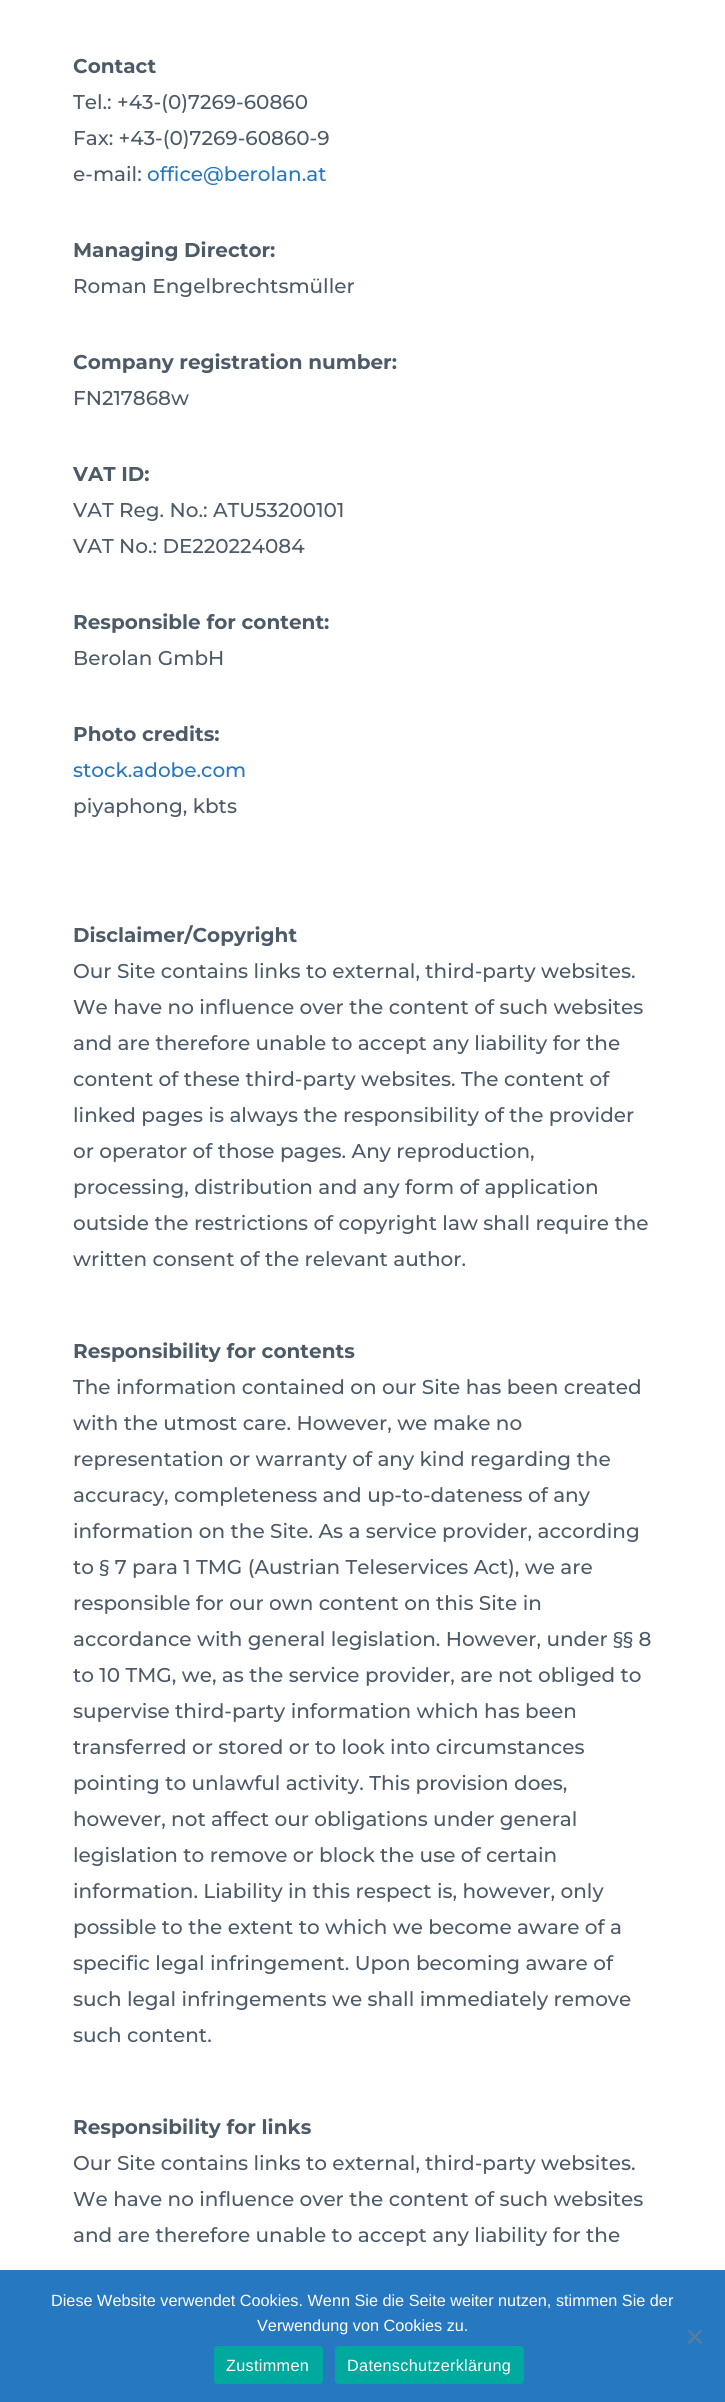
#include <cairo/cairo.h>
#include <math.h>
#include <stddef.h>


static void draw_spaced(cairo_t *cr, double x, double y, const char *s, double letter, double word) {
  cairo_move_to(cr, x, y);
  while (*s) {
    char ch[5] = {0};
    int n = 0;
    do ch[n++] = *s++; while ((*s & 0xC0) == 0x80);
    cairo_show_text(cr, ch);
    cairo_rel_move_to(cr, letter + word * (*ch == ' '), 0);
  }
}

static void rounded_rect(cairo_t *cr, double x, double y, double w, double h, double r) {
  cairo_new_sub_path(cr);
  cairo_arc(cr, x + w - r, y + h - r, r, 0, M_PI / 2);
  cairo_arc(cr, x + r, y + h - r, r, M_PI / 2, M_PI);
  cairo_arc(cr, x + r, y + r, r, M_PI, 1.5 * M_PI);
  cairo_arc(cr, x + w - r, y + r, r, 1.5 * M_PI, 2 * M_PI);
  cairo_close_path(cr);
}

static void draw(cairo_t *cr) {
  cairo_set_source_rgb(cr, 1, 1, 1);
  cairo_paint(cr);
  cairo_set_source_rgb(cr, 38 / 255.0, 120 / 255.0, 193 / 255.0);
  cairo_rectangle(cr, 0, 2270, 725, 132);
  cairo_fill(cr);
  cairo_set_source_rgb(cr, 83 / 255.0, 124 / 255.0, 161 / 255.0);
  cairo_new_path(cr);
  cairo_move_to(cr, 700.5, 2329.5);
  cairo_line_to(cr, 702.5, 2331);
  cairo_line_to(cr, 689.5, 2344.5);
  cairo_line_to(cr, 687.5, 2342.5);
  cairo_close_path(cr);
  cairo_fill(cr);
  cairo_new_path(cr);
  cairo_move_to(cr, 687.5, 2331);
  cairo_line_to(cr, 689.5, 2329.5);
  cairo_line_to(cr, 702.5, 2342.5);
  cairo_line_to(cr, 700.5, 2344.5);
  cairo_close_path(cr);
  cairo_fill(cr);
  cairo_set_source_rgb(cr, 0, 169 / 255.0, 157 / 255.0);
  rounded_rect(cr, 214, 2346, 109, 38, 4);
  cairo_fill(cr);
  rounded_rect(cr, 335, 2346, 189, 38, 4);
  cairo_fill(cr);
  cairo_select_font_face(cr, "Montserrat Thin", CAIRO_FONT_SLANT_NORMAL, CAIRO_FONT_WEIGHT_NORMAL);
  cairo_set_font_size(cr, 20);
  cairo_set_source_rgb(cr, 77 / 255.0, 91 / 255.0, 104 / 255.0);
  cairo_move_to(cr, 73, 73);
  cairo_show_text(cr, "Contact");
  cairo_select_font_face(cr, "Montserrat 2 Thin", CAIRO_FONT_SLANT_NORMAL, CAIRO_FONT_WEIGHT_NORMAL);
  cairo_move_to(cr, 73, 109);
  cairo_show_text(cr, "Tel.: +43-(0)7269-60860");
  cairo_move_to(cr, 73, 145);
  cairo_show_text(cr, "Fax: +43-(0)7269-60860-9");
  cairo_move_to(cr, 73, 181);
  cairo_show_text(cr, "e-mail:");
  cairo_set_source_rgb(cr, 38 / 255.0, 120 / 255.0, 193 / 255.0);
  cairo_move_to(cr, 147, 181);
  cairo_show_text(cr, "office@berolan.at");
  cairo_select_font_face(cr, "Montserrat Thin", CAIRO_FONT_SLANT_NORMAL, CAIRO_FONT_WEIGHT_NORMAL);
  cairo_set_source_rgb(cr, 77 / 255.0, 91 / 255.0, 104 / 255.0);
  cairo_move_to(cr, 73, 257);
  cairo_show_text(cr, "Managing Director:");
  cairo_select_font_face(cr, "Montserrat 2 Thin", CAIRO_FONT_SLANT_NORMAL, CAIRO_FONT_WEIGHT_NORMAL);
  cairo_move_to(cr, 73, 293);
  cairo_show_text(cr, "Roman Engelbrechtsmüller");
  cairo_select_font_face(cr, "Montserrat Thin", CAIRO_FONT_SLANT_NORMAL, CAIRO_FONT_WEIGHT_NORMAL);
  cairo_move_to(cr, 73, 369);
  cairo_show_text(cr, "Company registration number:");
  cairo_select_font_face(cr, "Montserrat 2 Thin", CAIRO_FONT_SLANT_NORMAL, CAIRO_FONT_WEIGHT_NORMAL);
  cairo_move_to(cr, 73, 405);
  cairo_show_text(cr, "FN217868w");
  cairo_select_font_face(cr, "Montserrat Thin", CAIRO_FONT_SLANT_NORMAL, CAIRO_FONT_WEIGHT_NORMAL);
  cairo_move_to(cr, 73, 481);
  cairo_show_text(cr, "VAT ID:");
  cairo_select_font_face(cr, "Montserrat 2 Thin", CAIRO_FONT_SLANT_NORMAL, CAIRO_FONT_WEIGHT_NORMAL);
  cairo_move_to(cr, 73, 517);
  cairo_show_text(cr, "VAT Reg. No.: ATU53200101");
  cairo_move_to(cr, 73, 553);
  cairo_show_text(cr, "VAT No.: DE220224084");
  cairo_select_font_face(cr, "Montserrat Thin", CAIRO_FONT_SLANT_NORMAL, CAIRO_FONT_WEIGHT_NORMAL);
  cairo_move_to(cr, 73, 629);
  cairo_show_text(cr, "Responsible for content:");
  cairo_select_font_face(cr, "Montserrat 2 Thin", CAIRO_FONT_SLANT_NORMAL, CAIRO_FONT_WEIGHT_NORMAL);
  cairo_move_to(cr, 73, 665);
  cairo_show_text(cr, "Berolan GmbH");
  cairo_select_font_face(cr, "Montserrat Thin", CAIRO_FONT_SLANT_NORMAL, CAIRO_FONT_WEIGHT_NORMAL);
  cairo_move_to(cr, 73, 741);
  cairo_show_text(cr, "Photo credits:");
  cairo_select_font_face(cr, "Montserrat 2 Thin", CAIRO_FONT_SLANT_NORMAL, CAIRO_FONT_WEIGHT_NORMAL);
  cairo_set_source_rgb(cr, 38 / 255.0, 120 / 255.0, 193 / 255.0);
  cairo_move_to(cr, 73, 777);
  cairo_show_text(cr, "stock.adobe.com");
  cairo_set_source_rgb(cr, 77 / 255.0, 91 / 255.0, 104 / 255.0);
  cairo_move_to(cr, 73, 813);
  cairo_show_text(cr, "piyaphong, kbts");
  cairo_select_font_face(cr, "Montserrat Thin", CAIRO_FONT_SLANT_NORMAL, CAIRO_FONT_WEIGHT_NORMAL);
  cairo_move_to(cr, 73, 942);
  cairo_show_text(cr, "Disclaimer/Copyright");
  cairo_select_font_face(cr, "Montserrat 2 Thin", CAIRO_FONT_SLANT_NORMAL, CAIRO_FONT_WEIGHT_NORMAL);
  cairo_move_to(cr, 73, 978);
  cairo_show_text(cr, "Our Site contains links to external, third-party websites.");
  cairo_move_to(cr, 73, 1014);
  cairo_show_text(cr, "We have no influence over the content of such websites");
  cairo_move_to(cr, 73, 1050);
  cairo_show_text(cr, "and are therefore unable to accept any liability for the");
  cairo_move_to(cr, 73, 1086);
  cairo_show_text(cr, "content of these third-party websites. The content of");
  cairo_move_to(cr, 73, 1122);
  cairo_show_text(cr, "linked pages is always the responsibility of the provider");
  cairo_move_to(cr, 73, 1158);
  cairo_show_text(cr, "or operator of those pages. Any reproduction,");
  cairo_move_to(cr, 73, 1194);
  cairo_show_text(cr, "processing, distribution and any form of application");
  cairo_move_to(cr, 73, 1230);
  cairo_show_text(cr, "outside the restrictions of copyright law shall require the");
  cairo_move_to(cr, 73, 1266);
  cairo_show_text(cr, "written consent of the relevant author.");
  cairo_select_font_face(cr, "Montserrat Thin", CAIRO_FONT_SLANT_NORMAL, CAIRO_FONT_WEIGHT_NORMAL);
  cairo_move_to(cr, 73, 1358);
  cairo_show_text(cr, "Responsibility for contents");
  cairo_select_font_face(cr, "Montserrat 2 Thin", CAIRO_FONT_SLANT_NORMAL, CAIRO_FONT_WEIGHT_NORMAL);
  cairo_move_to(cr, 73, 1394);
  cairo_show_text(cr, "The information contained on our Site has been created");
  cairo_move_to(cr, 73, 1430);
  cairo_show_text(cr, "with the utmost care. However, we make no");
  cairo_move_to(cr, 73, 1466);
  cairo_show_text(cr, "representation or warranty of any kind regarding the");
  cairo_move_to(cr, 73, 1502);
  cairo_show_text(cr, "accuracy, completeness and up-to-dateness of any");
  cairo_move_to(cr, 73, 1538);
  cairo_show_text(cr, "information on the Site. As a service provider, according");
  cairo_move_to(cr, 73, 1574);
  cairo_show_text(cr, "to § 7 para 1 TMG (Austrian Teleservices Act), we are");
  cairo_move_to(cr, 73, 1610);
  cairo_show_text(cr, "responsible for our own content on this Site in");
  cairo_move_to(cr, 73, 1646);
  cairo_show_text(cr, "accordance with general legislation. However, under §§ 8");
  cairo_move_to(cr, 73, 1682);
  cairo_show_text(cr, "to 10 TMG, we, as the service provider, are not obliged to");
  cairo_move_to(cr, 73, 1718);
  cairo_show_text(cr, "supervise third-party information which has been");
  cairo_move_to(cr, 73, 1754);
  cairo_show_text(cr, "transferred or stored or to look into circumstances");
  cairo_move_to(cr, 73, 1790);
  cairo_show_text(cr, "pointing to unlawful activity. This provision does,");
  cairo_move_to(cr, 73, 1826);
  cairo_show_text(cr, "however, not affect our obligations under general");
  cairo_move_to(cr, 73, 1862);
  cairo_show_text(cr, "legislation to remove or block the use of certain");
  cairo_move_to(cr, 73, 1898);
  cairo_show_text(cr, "information. Liability in this respect is, however, only");
  cairo_move_to(cr, 73, 1934);
  cairo_show_text(cr, "possible to the extent to which we become aware of a");
  cairo_move_to(cr, 73, 1970);
  cairo_show_text(cr, "specific legal infringement. Upon becoming aware of");
  cairo_move_to(cr, 73, 2006);
  cairo_show_text(cr, "such legal infringements we shall immediately remove");
  cairo_move_to(cr, 73, 2042);
  cairo_show_text(cr, "such content.");
  cairo_select_font_face(cr, "Montserrat Thin", CAIRO_FONT_SLANT_NORMAL, CAIRO_FONT_WEIGHT_NORMAL);
  cairo_move_to(cr, 73, 2134);
  cairo_show_text(cr, "Responsibility for links");
  cairo_select_font_face(cr, "Montserrat 2 Thin", CAIRO_FONT_SLANT_NORMAL, CAIRO_FONT_WEIGHT_NORMAL);
  cairo_move_to(cr, 73, 2170);
  cairo_show_text(cr, "Our Site contains links to external, third-party websites.");
  cairo_move_to(cr, 73, 2206);
  cairo_show_text(cr, "We have no influence over the content of such websites");
  cairo_move_to(cr, 73, 2242);
  cairo_show_text(cr, "and are therefore unable to accept any liability for the");
  cairo_select_font_face(cr, "Liberation Sans", CAIRO_FONT_SLANT_NORMAL, CAIRO_FONT_WEIGHT_NORMAL);
  cairo_set_font_size(cr, 16.25);
  cairo_set_source_rgb(cr, 1, 1, 1);
  cairo_move_to(cr, 51, 2306);
  cairo_show_text(cr, "Diese Website verwendet Cookies. Wenn Sie die Seite weiter nutzen, stimmen Sie der");
  cairo_move_to(cr, 257, 2331);
  cairo_show_text(cr, "Verwendung von Cookies zu.");
  draw_spaced(cr, 226, 2371, "Zustimmen", 0.3, 0);
  draw_spaced(cr, 347, 2371, "Datenschutzerklärung", 0.3, 0);
}

int main(void) {
  cairo_surface_t *surface = cairo_image_surface_create(CAIRO_FORMAT_RGB24, 725, 2402);
  cairo_t *cr = cairo_create(surface);
  cairo_font_options_t *options = cairo_font_options_create();
  cairo_font_options_set_hint_metrics(options, CAIRO_HINT_METRICS_OFF);
  cairo_font_options_set_hint_style(options, CAIRO_HINT_STYLE_NONE);
  cairo_set_font_options(cr, options);
  cairo_set_miter_limit(cr, 4);
  draw(cr);
  cairo_surface_write_to_png(surface, "out.png");
  cairo_font_options_destroy(options);
  cairo_destroy(cr);
  cairo_surface_destroy(surface);
  return 0;
}
